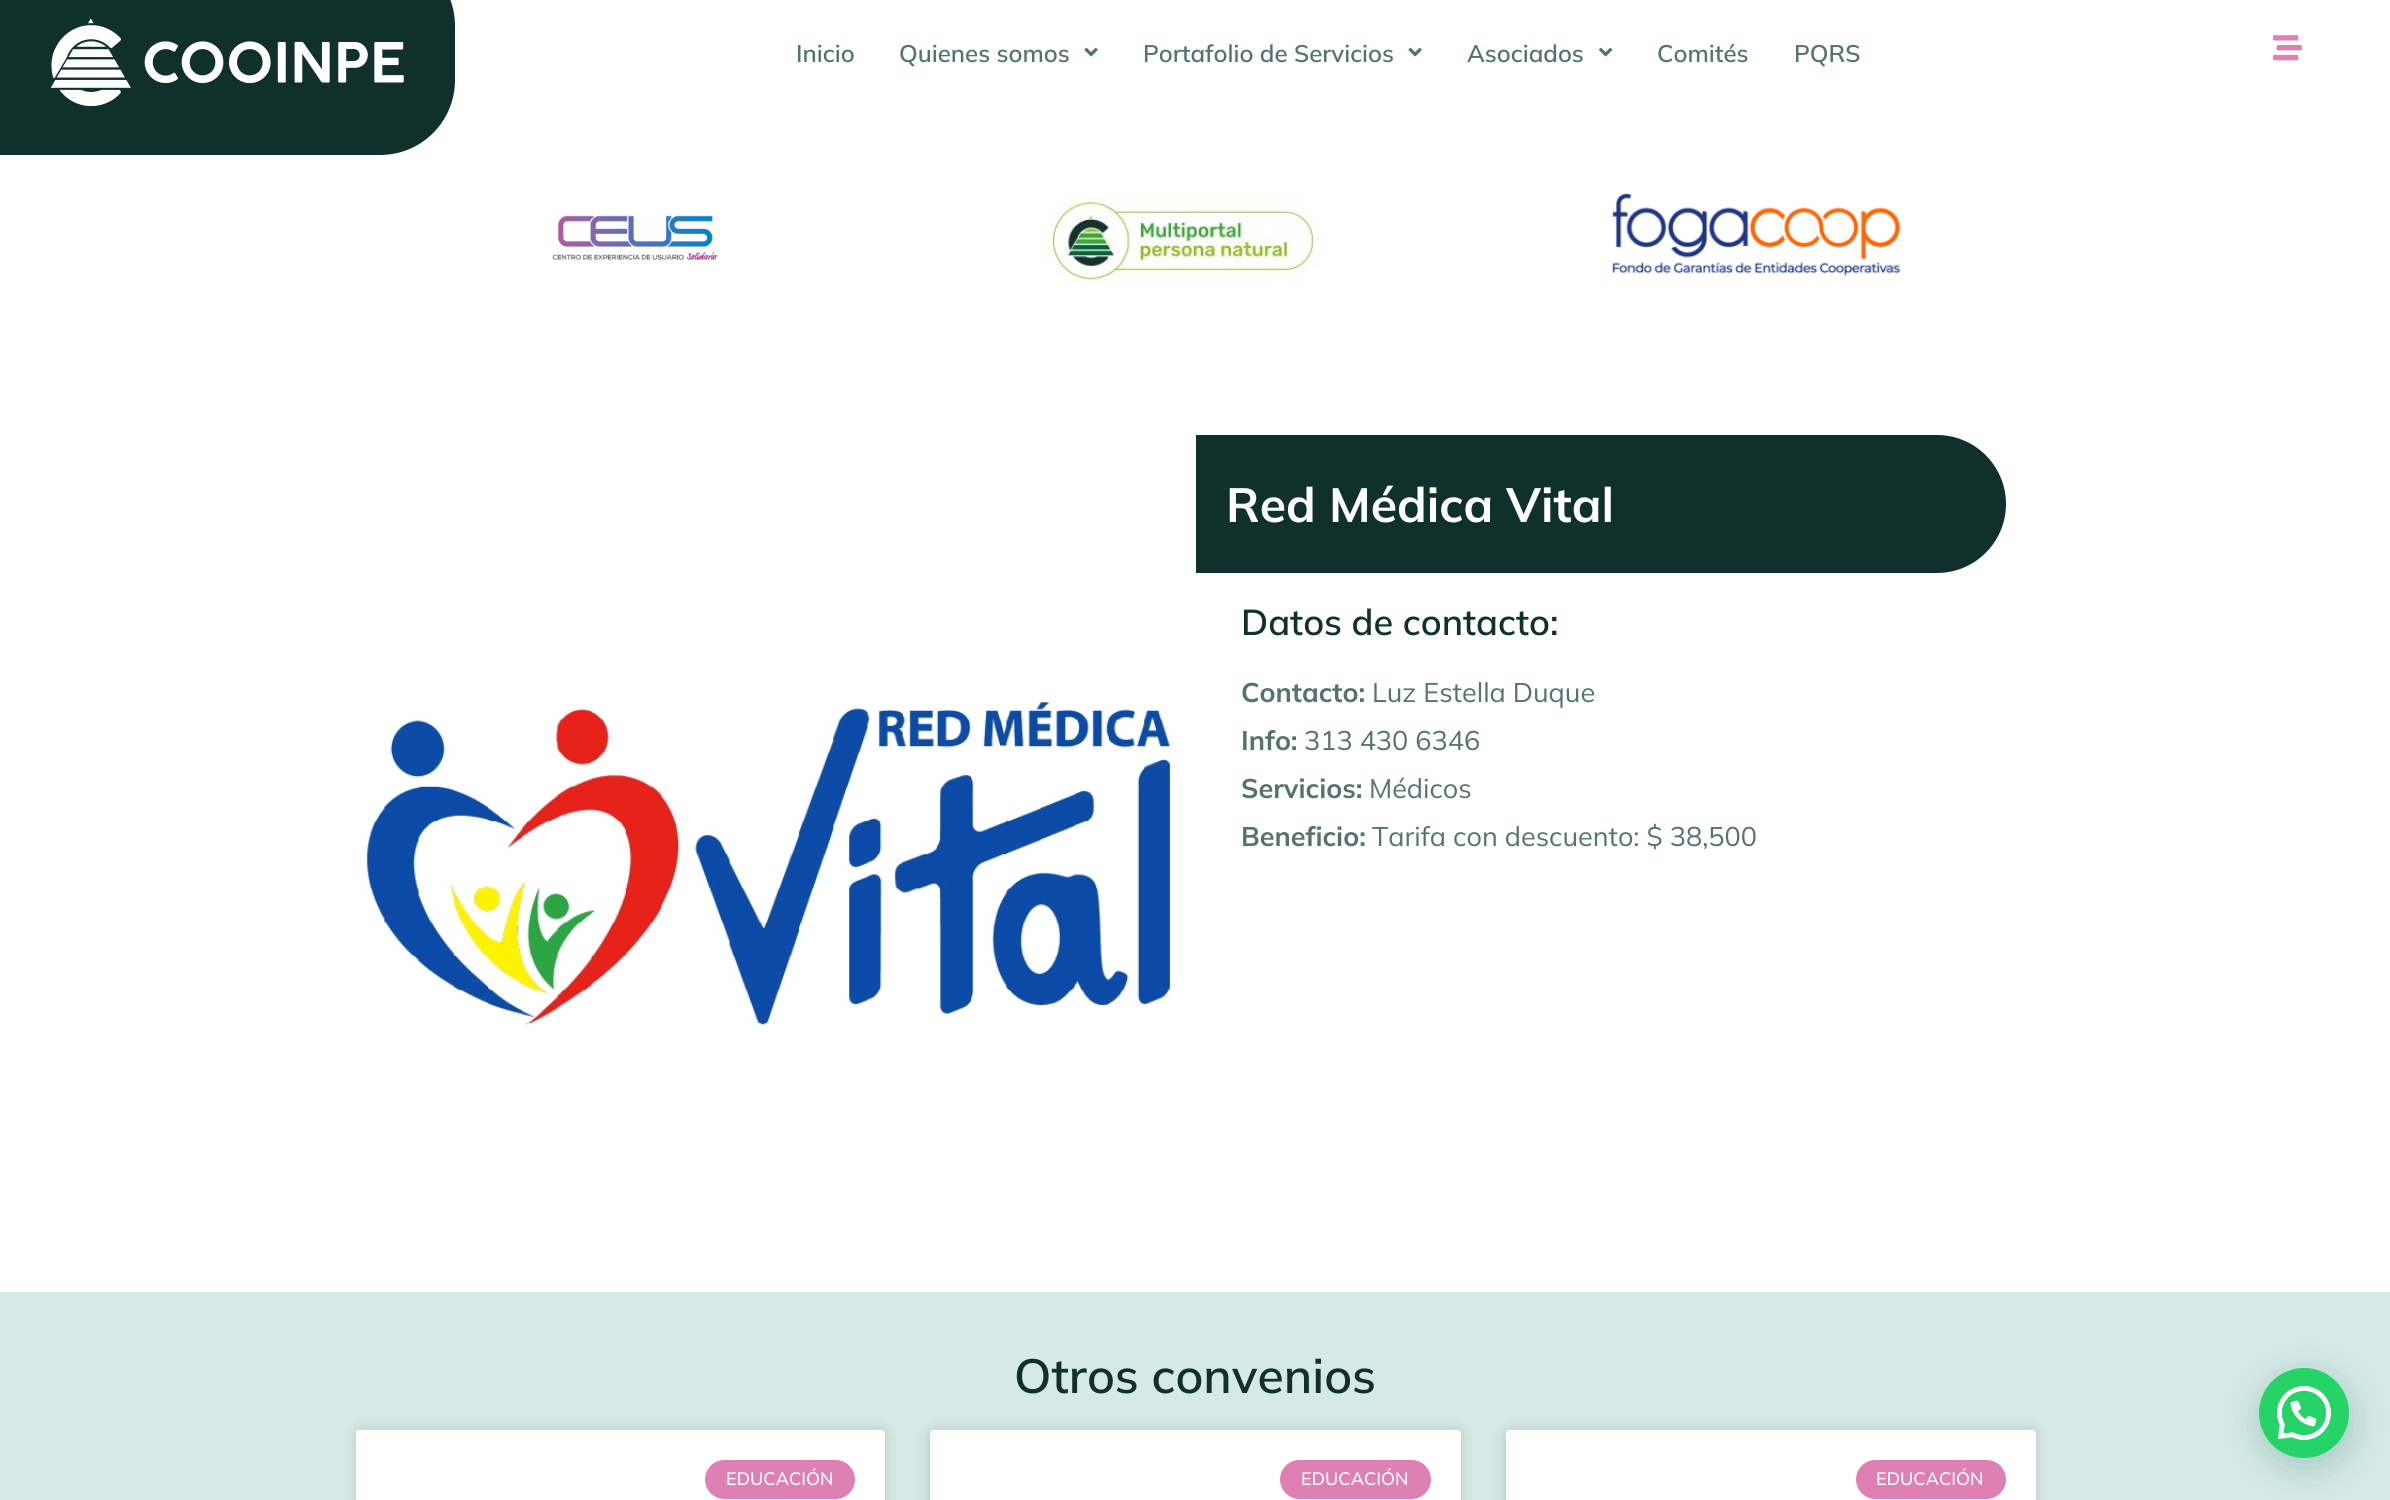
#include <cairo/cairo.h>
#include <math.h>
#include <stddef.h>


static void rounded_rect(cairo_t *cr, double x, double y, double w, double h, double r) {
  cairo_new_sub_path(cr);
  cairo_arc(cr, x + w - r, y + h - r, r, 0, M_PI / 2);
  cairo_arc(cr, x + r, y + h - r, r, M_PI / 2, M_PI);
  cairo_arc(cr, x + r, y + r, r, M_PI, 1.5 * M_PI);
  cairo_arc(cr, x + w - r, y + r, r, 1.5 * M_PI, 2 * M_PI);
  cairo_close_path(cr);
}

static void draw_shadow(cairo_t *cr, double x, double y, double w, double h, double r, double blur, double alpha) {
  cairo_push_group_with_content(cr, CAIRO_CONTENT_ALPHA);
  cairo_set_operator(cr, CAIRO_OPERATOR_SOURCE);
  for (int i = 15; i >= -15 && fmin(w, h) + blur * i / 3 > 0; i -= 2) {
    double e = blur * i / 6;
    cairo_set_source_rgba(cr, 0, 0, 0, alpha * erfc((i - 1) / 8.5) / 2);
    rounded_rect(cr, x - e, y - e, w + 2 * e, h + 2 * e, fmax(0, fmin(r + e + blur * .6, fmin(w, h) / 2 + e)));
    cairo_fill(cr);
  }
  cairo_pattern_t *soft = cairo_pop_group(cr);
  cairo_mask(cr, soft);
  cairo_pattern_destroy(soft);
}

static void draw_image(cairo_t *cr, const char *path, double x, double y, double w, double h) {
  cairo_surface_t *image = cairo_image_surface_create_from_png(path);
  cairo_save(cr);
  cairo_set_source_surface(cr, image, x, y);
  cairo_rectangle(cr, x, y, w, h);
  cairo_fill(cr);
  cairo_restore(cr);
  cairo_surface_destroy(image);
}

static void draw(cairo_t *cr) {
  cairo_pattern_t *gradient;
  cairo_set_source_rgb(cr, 1, 1, 1);
  cairo_paint(cr);
  cairo_set_source_rgb(cr, 16 / 255.0, 49 / 255.0, 43 / 255.0);
  cairo_new_path(cr);
  cairo_move_to(cr, 0, -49);
  cairo_line_to(cr, 380, -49);
  cairo_curve_to(cr, 421.5, -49, 455, -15.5, 455, 26);
  cairo_line_to(cr, 455, 80);
  cairo_curve_to(cr, 455, 121.5, 421.5, 155, 380, 155);
  cairo_line_to(cr, 0, 155);
  cairo_close_path(cr);
  cairo_fill(cr);
  draw_image(cr, "images/1.png", 50, 18, 354, 89);
  draw_image(cr, "images/2.png", 1084, 47, 14, 10);
  draw_image(cr, "images/2.png", 1408, 47, 14, 10);
  draw_image(cr, "images/3.png", 1599, 47, 14, 10);
  draw_image(cr, "images/4.png", 2273, 35, 29, 26);
  draw_image(cr, "images/5.png", 552, 215, 166, 45);
  draw_image(cr, "images/6.png", 1040, 198, 281, 84);
  draw_image(cr, "images/7.png", 1612, 193, 289, 84);
  draw_image(cr, "images/8.png", 365, 701, 806, 325);
  cairo_new_path(cr);
  cairo_move_to(cr, 1196, 435);
  cairo_line_to(cr, 1937, 435);
  cairo_curve_to(cr, 1975, 435, 2006, 466, 2006, 504);
  cairo_curve_to(cr, 2006, 542, 1975, 573, 1937, 573);
  cairo_line_to(cr, 1196, 573);
  cairo_close_path(cr);
  cairo_fill(cr);
  cairo_set_source_rgb(cr, 213 / 255.0, 233 / 255.0, 229 / 255.0);
  cairo_rectangle(cr, 0, 1292, 2390, 208);
  cairo_fill(cr);
  cairo_set_source_rgb(cr, 0, 0, 0);
  draw_shadow(cr, 356, 1430, 529, 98, 5, 7.5, 0.15);
  draw_image(cr, "images/9.png", 355, 1429, 530, 71);
  gradient = cairo_pattern_create_linear(620, 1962, 620, 1430);
  cairo_pattern_add_color_stop_rgba(gradient, 0, 166 / 255.0, 166 / 255.0, 166 / 255.0, 1);
  cairo_pattern_add_color_stop_rgba(gradient, 0.75, 1, 1, 1, 1);
  cairo_set_source(cr, gradient);
  cairo_pattern_destroy(gradient);
  cairo_new_path(cr);
  cairo_move_to(cr, 361, 1430);
  cairo_line_to(cr, 880, 1430);
  cairo_curve_to(cr, 883, 1430, 885, 1432, 885, 1435);
  cairo_line_to(cr, 885, 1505);
  cairo_line_to(cr, 356, 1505);
  cairo_line_to(cr, 356, 1435);
  cairo_curve_to(cr, 356, 1432, 358, 1430, 361, 1430);
  cairo_close_path(cr);
  cairo_fill(cr);
  cairo_set_source_rgb(cr, 222 / 255.0, 128 / 255.0, 180 / 255.0);
  rounded_rect(cr, 705, 1460, 150, 39, 19.5);
  cairo_fill(cr);
  cairo_set_source_rgb(cr, 0, 0, 0);
  draw_shadow(cr, 930, 1430, 531, 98, 5, 7.5, 0.15);
  draw_image(cr, "images/10.png", 930, 1429, 531, 5);
  gradient = cairo_pattern_create_linear(1196, 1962, 1196, 1430);
  cairo_pattern_add_color_stop_rgba(gradient, 0, 166 / 255.0, 166 / 255.0, 166 / 255.0, 1);
  cairo_pattern_add_color_stop_rgba(gradient, 0.75, 1, 1, 1, 1);
  cairo_set_source(cr, gradient);
  cairo_pattern_destroy(gradient);
  cairo_new_path(cr);
  cairo_move_to(cr, 935, 1430);
  cairo_line_to(cr, 1456, 1430);
  cairo_curve_to(cr, 1459, 1430, 1461, 1432, 1461, 1435);
  cairo_line_to(cr, 1461, 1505);
  cairo_line_to(cr, 930, 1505);
  cairo_line_to(cr, 930, 1435);
  cairo_curve_to(cr, 930, 1432, 932, 1430, 935, 1430);
  cairo_close_path(cr);
  cairo_fill(cr);
  cairo_set_source_rgb(cr, 222 / 255.0, 128 / 255.0, 180 / 255.0);
  rounded_rect(cr, 1280, 1460, 151, 39, 19.5);
  cairo_fill(cr);
  cairo_set_source_rgb(cr, 0, 0, 0);
  draw_shadow(cr, 1506, 1430, 530, 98, 5, 7.5, 0.15);
  cairo_set_source_rgb(cr, 1, 1, 1);
  rounded_rect(cr, 1506, 1430, 530, 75, 5);
  cairo_fill(cr);
  draw_image(cr, "images/11.png", 1506, 1429, 529, 5);
  cairo_set_source_rgb(cr, 222 / 255.0, 128 / 255.0, 180 / 255.0);
  rounded_rect(cr, 1856, 1460, 150, 39, 19.5);
  cairo_fill(cr);
  cairo_set_source_rgb(cr, 7 / 255.0, 94 / 255.0, 84 / 255.0);
  draw_shadow(cr, 2261, 1377, 90, 90, 45, 18, 0.24);
  cairo_set_source_rgb(cr, 37 / 255.0, 211 / 255.0, 102 / 255.0);
  cairo_arc(cr, 2304, 1413, 45, 0, 2 * M_PI);
  cairo_fill(cr);
  draw_image(cr, "images/12.png", 2277, 1386, 54, 54);
  cairo_select_font_face(cr, "Mulish SemiBold", CAIRO_FONT_SLANT_NORMAL, CAIRO_FONT_WEIGHT_NORMAL);
  cairo_set_font_size(cr, 24);
  cairo_set_source_rgb(cr, 84 / 255.0, 115 / 255.0, 109 / 255.0);
  cairo_move_to(cr, 796, 62);
  cairo_show_text(cr, "Inicio");
  cairo_move_to(cr, 899, 62);
  cairo_show_text(cr, "Quienes somos");
  cairo_move_to(cr, 1143, 62);
  cairo_show_text(cr, "Portafolio de Servicios");
  cairo_move_to(cr, 1467, 62);
  cairo_show_text(cr, "Asociados");
  cairo_move_to(cr, 1657, 62);
  cairo_show_text(cr, "Comités");
  cairo_move_to(cr, 1794, 62);
  cairo_show_text(cr, "PQRS");
  cairo_select_font_face(cr, "Mulish", CAIRO_FONT_SLANT_NORMAL, CAIRO_FONT_WEIGHT_BOLD);
  cairo_set_font_size(cr, 48);
  cairo_set_source_rgb(cr, 1, 1, 1);
  cairo_move_to(cr, 1226, 522);
  cairo_show_text(cr, "Red Médica Vital");
  cairo_select_font_face(cr, "Mulish SemiBold", CAIRO_FONT_SLANT_NORMAL, CAIRO_FONT_WEIGHT_NORMAL);
  cairo_set_font_size(cr, 36);
  cairo_set_source_rgb(cr, 16 / 255.0, 49 / 255.0, 43 / 255.0);
  cairo_move_to(cr, 1241, 635);
  cairo_show_text(cr, "Datos de contacto:");
  cairo_select_font_face(cr, "Mulish", CAIRO_FONT_SLANT_NORMAL, CAIRO_FONT_WEIGHT_BOLD);
  cairo_set_font_size(cr, 27);
  cairo_set_source_rgb(cr, 84 / 255.0, 115 / 255.0, 109 / 255.0);
  cairo_move_to(cr, 1241, 702);
  cairo_show_text(cr, "Contacto:");
  cairo_select_font_face(cr, "Mulish", CAIRO_FONT_SLANT_NORMAL, CAIRO_FONT_WEIGHT_NORMAL);
  cairo_move_to(cr, 1372, 702);
  cairo_show_text(cr, "Luz Estella Duque");
  cairo_select_font_face(cr, "Mulish", CAIRO_FONT_SLANT_NORMAL, CAIRO_FONT_WEIGHT_BOLD);
  cairo_move_to(cr, 1241, 750);
  cairo_show_text(cr, "Info:");
  cairo_select_font_face(cr, "Mulish", CAIRO_FONT_SLANT_NORMAL, CAIRO_FONT_WEIGHT_NORMAL);
  cairo_move_to(cr, 1304, 750);
  cairo_show_text(cr, "313 430 6346");
  cairo_select_font_face(cr, "Mulish", CAIRO_FONT_SLANT_NORMAL, CAIRO_FONT_WEIGHT_BOLD);
  cairo_move_to(cr, 1241, 798);
  cairo_show_text(cr, "Servicios:");
  cairo_select_font_face(cr, "Mulish", CAIRO_FONT_SLANT_NORMAL, CAIRO_FONT_WEIGHT_NORMAL);
  cairo_move_to(cr, 1369, 798);
  cairo_show_text(cr, "Médicos");
  cairo_select_font_face(cr, "Mulish", CAIRO_FONT_SLANT_NORMAL, CAIRO_FONT_WEIGHT_BOLD);
  cairo_move_to(cr, 1241, 846);
  cairo_show_text(cr, "Beneficio:");
  cairo_select_font_face(cr, "Mulish", CAIRO_FONT_SLANT_NORMAL, CAIRO_FONT_WEIGHT_NORMAL);
  cairo_move_to(cr, 1372, 846);
  cairo_show_text(cr, "Tarifa con descuento: $ 38,500");
  cairo_select_font_face(cr, "Mulish SemiBold", CAIRO_FONT_SLANT_NORMAL, CAIRO_FONT_WEIGHT_NORMAL);
  cairo_set_font_size(cr, 48);
  cairo_set_source_rgb(cr, 16 / 255.0, 49 / 255.0, 43 / 255.0);
  cairo_move_to(cr, 1014, 1393);
  cairo_show_text(cr, "Otros convenios");
  cairo_select_font_face(cr, "Mulish Medium", CAIRO_FONT_SLANT_NORMAL, CAIRO_FONT_WEIGHT_NORMAL);
  cairo_set_font_size(cr, 18);
  cairo_set_source_rgb(cr, 1, 1, 1);
  cairo_move_to(cr, 726, 1485);
  cairo_show_text(cr, "EDUCACIÓN");
  cairo_move_to(cr, 1301, 1485);
  cairo_show_text(cr, "EDUCACIÓN");
  cairo_move_to(cr, 1876, 1485);
  cairo_show_text(cr, "EDUCACIÓN");
}

int main(void) {
  cairo_surface_t *surface = cairo_image_surface_create(CAIRO_FORMAT_RGB24, 2390, 1500);
  cairo_t *cr = cairo_create(surface);
  cairo_font_options_t *options = cairo_font_options_create();
  cairo_font_options_set_hint_metrics(options, CAIRO_HINT_METRICS_OFF);
  cairo_font_options_set_hint_style(options, CAIRO_HINT_STYLE_NONE);
  cairo_set_font_options(cr, options);
  cairo_set_miter_limit(cr, 4);
  draw(cr);
  cairo_surface_write_to_png(surface, "out.png");
  cairo_font_options_destroy(options);
  cairo_destroy(cr);
  cairo_surface_destroy(surface);
  return 0;
}
